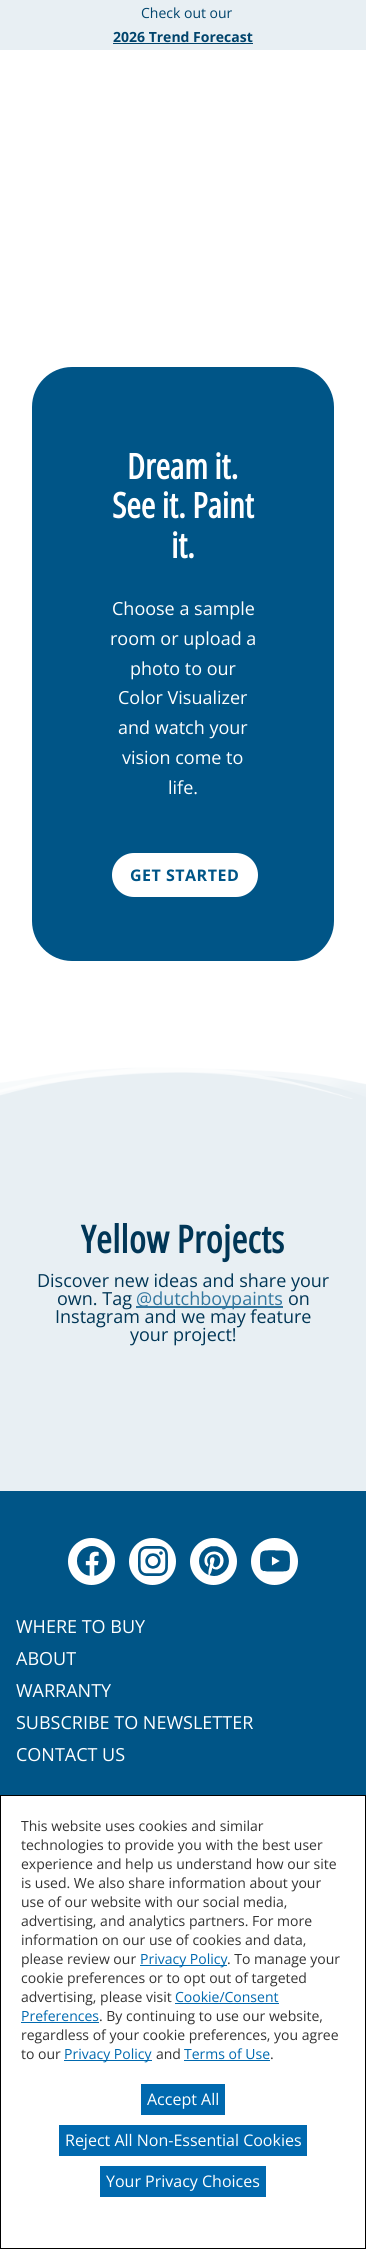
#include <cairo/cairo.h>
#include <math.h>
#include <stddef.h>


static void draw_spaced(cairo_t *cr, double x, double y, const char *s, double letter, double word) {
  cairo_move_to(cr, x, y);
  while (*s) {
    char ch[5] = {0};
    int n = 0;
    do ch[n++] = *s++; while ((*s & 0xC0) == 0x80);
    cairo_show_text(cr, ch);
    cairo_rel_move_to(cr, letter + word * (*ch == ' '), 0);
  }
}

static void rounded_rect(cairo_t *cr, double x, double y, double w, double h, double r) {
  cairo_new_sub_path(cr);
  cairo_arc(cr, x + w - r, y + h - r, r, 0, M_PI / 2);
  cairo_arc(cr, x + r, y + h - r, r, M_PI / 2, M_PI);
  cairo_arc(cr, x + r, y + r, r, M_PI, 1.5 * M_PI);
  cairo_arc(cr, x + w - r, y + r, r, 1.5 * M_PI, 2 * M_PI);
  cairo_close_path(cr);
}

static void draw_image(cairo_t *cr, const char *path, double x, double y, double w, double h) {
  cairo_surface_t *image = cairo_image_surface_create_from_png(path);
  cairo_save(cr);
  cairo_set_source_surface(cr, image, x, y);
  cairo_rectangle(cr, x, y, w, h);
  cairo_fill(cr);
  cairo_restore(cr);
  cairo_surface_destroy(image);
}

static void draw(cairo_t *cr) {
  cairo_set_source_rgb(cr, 1, 1, 1);
  cairo_paint(cr);
  cairo_set_source_rgb(cr, 232 / 255.0, 239 / 255.0, 243 / 255.0);
  cairo_rectangle(cr, 0, 0, 366, 50);
  cairo_fill(cr);
  cairo_set_source_rgb(cr, 0, 68 / 255.0, 108 / 255.0);
  cairo_rectangle(cr, 113, 43, 140, 1);
  cairo_fill(cr);
  cairo_set_source_rgb(cr, 0, 85 / 255.0, 135 / 255.0);
  rounded_rect(cr, 32, 367, 302, 594, 40);
  cairo_fill(cr);
  cairo_set_source_rgb(cr, 1, 1, 1);
  rounded_rect(cr, 111, 852, 148, 46, 23);
  cairo_fill_preserve(cr);
  cairo_set_source_rgb(cr, 0, 85 / 255.0, 135 / 255.0);
  cairo_stroke(cr);
  cairo_set_source_rgb(cr, 232 / 255.0, 239 / 255.0, 243 / 255.0);
  cairo_rectangle(cr, 0, 1065, 366, 426);
  cairo_fill(cr);
  draw_image(cr, "images/1.png", 0, 1065, 366, 34);
  cairo_set_source_rgb(cr, 51 / 255.0, 119 / 255.0, 159 / 255.0);
  cairo_rectangle(cr, 136, 1306, 147, 2);
  cairo_fill(cr);
  cairo_set_source_rgb(cr, 0, 85 / 255.0, 135 / 255.0);
  cairo_rectangle(cr, 0, 1491, 366, 304);
  cairo_fill(cr);
  cairo_set_source_rgb(cr, 1, 1, 1);
  cairo_arc(cr, 91.5, 1561.5, 23.5, 0, 2 * M_PI);
  cairo_fill(cr);
  draw_image(cr, "images/2.png", 77, 1546, 30, 30);
  cairo_arc(cr, 152.5, 1561.5, 23.5, 0, 2 * M_PI);
  cairo_fill(cr);
  draw_image(cr, "images/3.png", 138, 1546, 30, 30);
  cairo_arc(cr, 213.5, 1561.5, 23.5, 0, 2 * M_PI);
  cairo_fill(cr);
  draw_image(cr, "images/4.png", 199, 1546, 30, 30);
  cairo_arc(cr, 274.5, 1561.5, 23.5, 0, 2 * M_PI);
  cairo_fill(cr);
  draw_image(cr, "images/5.png", 260, 1550, 30, 22);
  cairo_rectangle(cr, 0.5, 1795.5, 365, 453);
  cairo_set_source_rgb(cr, 0, 0, 0);
  cairo_set_line_width(cr, 1);
  cairo_stroke(cr);
  cairo_set_source_rgb(cr, 0, 105 / 255.0, 175 / 255.0);
  cairo_rectangle(cr, 140, 1965, 87, 1);
  cairo_fill(cr);
  cairo_rectangle(cr, 175, 2003, 104, 1);
  cairo_fill(cr);
  cairo_rectangle(cr, 21, 2022, 78, 1);
  cairo_fill(cr);
  cairo_rectangle(cr, 64, 2060, 88, 1);
  cairo_fill(cr);
  cairo_rectangle(cr, 184, 2060, 86, 1);
  cairo_fill(cr);
  cairo_rectangle(cr, 141, 2084, 84, 31);
  cairo_fill(cr);
  cairo_rectangle(cr, 59, 2125, 248, 31);
  cairo_fill(cr);
  cairo_rectangle(cr, 100, 2166, 166, 31);
  cairo_fill(cr);
  cairo_select_font_face(cr, "Open Sans", CAIRO_FONT_SLANT_NORMAL, CAIRO_FONT_WEIGHT_NORMAL);
  cairo_set_font_size(cr, 14);
  cairo_set_source_rgb(cr, 0, 68 / 255.0, 108 / 255.0);
  cairo_move_to(cr, 141, 18);
  cairo_show_text(cr, "Check out our");
  cairo_select_font_face(cr, "Open Sans", CAIRO_FONT_SLANT_NORMAL, CAIRO_FONT_WEIGHT_BOLD);
  cairo_move_to(cr, 113, 42);
  cairo_show_text(cr, "2026 Trend Forecast");
  cairo_select_font_face(cr, "Open Sans Condensed", CAIRO_FONT_SLANT_NORMAL, CAIRO_FONT_WEIGHT_BOLD);
  cairo_set_font_size(cr, 35);
  cairo_set_source_rgb(cr, 1, 1, 1);
  cairo_move_to(cr, 127, 479);
  cairo_show_text(cr, "Dream it.");
  cairo_move_to(cr, 112, 518);
  cairo_show_text(cr, "See it. Paint");
  cairo_move_to(cr, 171, 558);
  cairo_show_text(cr, "it.");
  cairo_select_font_face(cr, "Open Sans", CAIRO_FONT_SLANT_NORMAL, CAIRO_FONT_WEIGHT_NORMAL);
  cairo_set_font_size(cr, 18);
  cairo_move_to(cr, 112, 615);
  cairo_show_text(cr, "Choose a sample");
  cairo_move_to(cr, 110, 645);
  cairo_show_text(cr, "room or upload a");
  cairo_move_to(cr, 130, 675);
  cairo_show_text(cr, "photo to our");
  cairo_move_to(cr, 118, 704);
  cairo_show_text(cr, "Color Visualizer");
  cairo_move_to(cr, 118, 734);
  cairo_show_text(cr, "and watch your");
  cairo_move_to(cr, 122, 764);
  cairo_show_text(cr, "vision come to");
  cairo_move_to(cr, 168, 794);
  cairo_show_text(cr, "life.");
  cairo_select_font_face(cr, "Open Sans", CAIRO_FONT_SLANT_NORMAL, CAIRO_FONT_WEIGHT_BOLD);
  cairo_set_font_size(cr, 16);
  cairo_set_source_rgb(cr, 0, 85 / 255.0, 135 / 255.0);
  draw_spaced(cr, 130, 881, "GET STARTED", 0.5, 0);
  cairo_select_font_face(cr, "Open Sans Condensed", CAIRO_FONT_SLANT_NORMAL, CAIRO_FONT_WEIGHT_BOLD);
  cairo_set_font_size(cr, 38);
  cairo_set_source_rgb(cr, 0, 54 / 255.0, 86 / 255.0);
  draw_spaced(cr, 81, 1253, "Yellow Projects", 0.5, 0);
  cairo_select_font_face(cr, "Open Sans", CAIRO_FONT_SLANT_NORMAL, CAIRO_FONT_WEIGHT_NORMAL);
  cairo_set_font_size(cr, 18);
  cairo_move_to(cr, 37, 1287);
  cairo_show_text(cr, "Discover new ideas and share your");
  cairo_move_to(cr, 57, 1305);
  cairo_show_text(cr, "own. Tag");
  cairo_set_source_rgb(cr, 51 / 255.0, 119 / 255.0, 159 / 255.0);
  cairo_move_to(cr, 136, 1305);
  cairo_show_text(cr, "@dutchboypaints");
  cairo_set_source_rgb(cr, 0, 54 / 255.0, 86 / 255.0);
  cairo_move_to(cr, 288, 1305);
  cairo_show_text(cr, "on");
  cairo_move_to(cr, 55, 1323);
  cairo_show_text(cr, "Instagram and we may feature");
  cairo_move_to(cr, 130, 1341);
  cairo_show_text(cr, "your project!");
  cairo_set_source_rgb(cr, 1, 1, 1);
  cairo_move_to(cr, 16, 1633);
  cairo_show_text(cr, "WHERE TO BUY");
  cairo_move_to(cr, 16, 1665);
  cairo_show_text(cr, "ABOUT");
  cairo_move_to(cr, 16, 1697);
  cairo_show_text(cr, "WARRANTY");
  cairo_move_to(cr, 16, 1729);
  cairo_show_text(cr, "SUBSCRIBE TO NEWSLETTER");
  cairo_move_to(cr, 16, 1761);
  cairo_show_text(cr, "CONTACT US");
  cairo_set_font_size(cr, 14);
  cairo_set_source_rgb(cr, 51 / 255.0, 51 / 255.0, 51 / 255.0);
  cairo_move_to(cr, 21, 1831);
  cairo_show_text(cr, "This website uses cookies and similar");
  cairo_move_to(cr, 21, 1850);
  cairo_show_text(cr, "technologies to provide you with the best user");
  cairo_move_to(cr, 21, 1869);
  cairo_show_text(cr, "experience and help us understand how our site");
  cairo_move_to(cr, 21, 1888);
  cairo_show_text(cr, "is used. We also share information about your");
  cairo_move_to(cr, 21, 1907);
  cairo_show_text(cr, "use of our website with our social media,");
  cairo_move_to(cr, 21, 1926);
  cairo_show_text(cr, "advertising, and analytics partners. For more");
  cairo_move_to(cr, 21, 1945);
  cairo_show_text(cr, "information on our use of cookies and data,");
  cairo_move_to(cr, 21, 1964);
  cairo_show_text(cr, "please review our");
  cairo_set_source_rgb(cr, 0, 105 / 255.0, 175 / 255.0);
  cairo_move_to(cr, 140, 1964);
  cairo_show_text(cr, "Privacy Policy");
  cairo_set_source_rgb(cr, 51 / 255.0, 51 / 255.0, 51 / 255.0);
  cairo_move_to(cr, 227, 1964);
  cairo_show_text(cr, ". To manage your");
  cairo_move_to(cr, 21, 1983);
  cairo_show_text(cr, "cookie preferences or to opt out of targeted");
  cairo_move_to(cr, 21, 2002);
  cairo_show_text(cr, "advertising, please visit");
  cairo_set_source_rgb(cr, 0, 105 / 255.0, 175 / 255.0);
  cairo_move_to(cr, 175, 2002);
  cairo_show_text(cr, "Cookie/Consent");
  cairo_move_to(cr, 21, 2021);
  cairo_show_text(cr, "Preferences");
  cairo_set_source_rgb(cr, 51 / 255.0, 51 / 255.0, 51 / 255.0);
  cairo_move_to(cr, 99, 2021);
  cairo_show_text(cr, ". By continuing to use our website,");
  cairo_move_to(cr, 21, 2040);
  cairo_show_text(cr, "regardless of your cookie preferences, you agree");
  cairo_move_to(cr, 21, 2059);
  cairo_show_text(cr, "to our");
  cairo_set_source_rgb(cr, 0, 105 / 255.0, 175 / 255.0);
  cairo_move_to(cr, 64, 2059);
  cairo_show_text(cr, "Privacy Policy");
  cairo_set_source_rgb(cr, 51 / 255.0, 51 / 255.0, 51 / 255.0);
  cairo_move_to(cr, 156, 2059);
  cairo_show_text(cr, "and");
  cairo_set_source_rgb(cr, 0, 105 / 255.0, 175 / 255.0);
  cairo_move_to(cr, 184, 2059);
  cairo_show_text(cr, "Terms of Use");
  cairo_set_source_rgb(cr, 51 / 255.0, 51 / 255.0, 51 / 255.0);
  cairo_move_to(cr, 270, 2059);
  cairo_show_text(cr, ".");
  cairo_set_font_size(cr, 16);
  cairo_set_source_rgb(cr, 1, 1, 1);
  cairo_move_to(cr, 147, 2105);
  cairo_show_text(cr, "Accept All");
  cairo_move_to(cr, 65, 2146);
  cairo_show_text(cr, "Reject All Non-Essential Cookies");
  cairo_move_to(cr, 106, 2187);
  cairo_show_text(cr, "Your Privacy Choices");
}

int main(void) {
  cairo_surface_t *surface = cairo_image_surface_create(CAIRO_FORMAT_RGB24, 366, 2249);
  cairo_t *cr = cairo_create(surface);
  cairo_font_options_t *options = cairo_font_options_create();
  cairo_font_options_set_hint_metrics(options, CAIRO_HINT_METRICS_OFF);
  cairo_font_options_set_hint_style(options, CAIRO_HINT_STYLE_NONE);
  cairo_set_font_options(cr, options);
  cairo_set_miter_limit(cr, 4);
  draw(cr);
  cairo_surface_write_to_png(surface, "out.png");
  cairo_font_options_destroy(options);
  cairo_destroy(cr);
  cairo_surface_destroy(surface);
  return 0;
}
